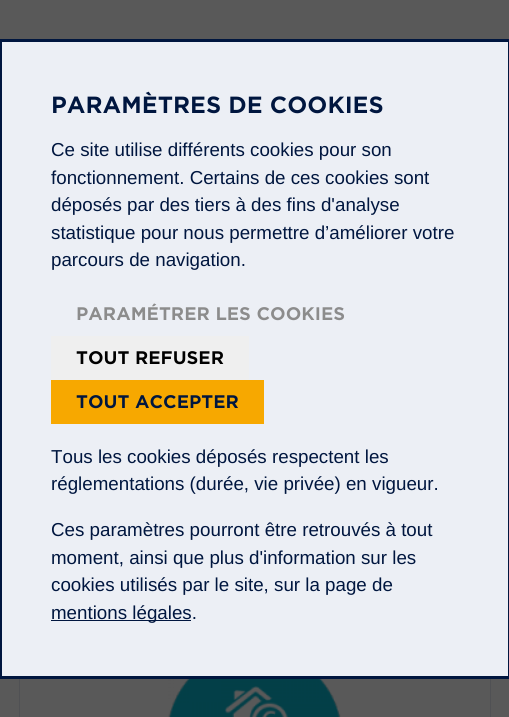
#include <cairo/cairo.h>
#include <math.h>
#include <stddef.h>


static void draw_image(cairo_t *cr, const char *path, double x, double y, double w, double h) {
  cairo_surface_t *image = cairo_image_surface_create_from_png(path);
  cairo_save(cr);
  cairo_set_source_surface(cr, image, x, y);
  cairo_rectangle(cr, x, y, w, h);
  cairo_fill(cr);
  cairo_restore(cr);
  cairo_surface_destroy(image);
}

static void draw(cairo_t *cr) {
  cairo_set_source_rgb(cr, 89 / 255.0, 89 / 255.0, 89 / 255.0);
  cairo_paint(cr);
  cairo_rectangle(cr, 19.5, 616.5, 471, 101);
  cairo_set_source_rgb(cr, 80 / 255.0, 81 / 255.0, 84 / 255.0);
  cairo_set_line_width(cr, 1);
  cairo_stroke(cr);
  cairo_set_source_rgb(cr, 236 / 255.0, 239 / 255.0, 245 / 255.0);
  cairo_rectangle(cr, 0.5, 40.5, 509, 637);
  cairo_fill_preserve(cr);
  cairo_set_source_rgb(cr, 0, 22 / 255.0, 63 / 255.0);
  cairo_set_line_width(cr, 3);
  cairo_stroke(cr);
  cairo_set_source_rgb(cr, 239 / 255.0, 239 / 255.0, 239 / 255.0);
  cairo_rectangle(cr, 51, 336, 198, 44);
  cairo_fill(cr);
  cairo_set_source_rgb(cr, 247 / 255.0, 168 / 255.0, 0);
  cairo_rectangle(cr, 51, 380, 213, 44);
  cairo_fill(cr);
  cairo_set_source_rgb(cr, 0, 22 / 255.0, 63 / 255.0);
  cairo_rectangle(cr, 51, 620, 140, 1);
  cairo_fill(cr);
  draw_image(cr, "images/1.png", 168, 679, 173, 38);
  cairo_select_font_face(cr, "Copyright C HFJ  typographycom", CAIRO_FONT_SLANT_NORMAL, CAIRO_FONT_WEIGHT_NORMAL);
  cairo_set_font_size(cr, 22.5);
  cairo_move_to(cr, 51, 113);
  cairo_show_text(cr, "PARAMÈTRES DE COOKIES");
  cairo_select_font_face(cr, "Liberation Sans", CAIRO_FONT_SLANT_NORMAL, CAIRO_FONT_WEIGHT_NORMAL);
  cairo_set_font_size(cr, 18.75);
  cairo_move_to(cr, 51, 156);
  cairo_show_text(cr, "Ce site utilise différents cookies pour son");
  cairo_move_to(cr, 51, 184);
  cairo_show_text(cr, "fonctionnement. Certains de ces cookies sont");
  cairo_move_to(cr, 51, 211);
  cairo_show_text(cr, "déposés par des tiers à des fins d'analyse");
  cairo_move_to(cr, 51, 239);
  cairo_show_text(cr, "statistique pour nous permettre d’améliorer votre");
  cairo_move_to(cr, 51, 266);
  cairo_show_text(cr, "parcours de navigation.");
  cairo_select_font_face(cr, "Copyright C HFJ  typographycom", CAIRO_FONT_SLANT_NORMAL, CAIRO_FONT_WEIGHT_NORMAL);
  cairo_set_font_size(cr, 17.5);
  cairo_set_source_rgb(cr, 140 / 255.0, 140 / 255.0, 140 / 255.0);
  cairo_move_to(cr, 76, 320);
  cairo_show_text(cr, "PARAMÉTRER LES COOKIES");
  cairo_set_source_rgb(cr, 0, 0, 0);
  cairo_move_to(cr, 76, 364);
  cairo_show_text(cr, "TOUT REFUSER");
  cairo_set_source_rgb(cr, 0, 22 / 255.0, 63 / 255.0);
  cairo_move_to(cr, 76, 408);
  cairo_show_text(cr, "TOUT ACCEPTER");
  cairo_select_font_face(cr, "Liberation Sans", CAIRO_FONT_SLANT_NORMAL, CAIRO_FONT_WEIGHT_NORMAL);
  cairo_set_font_size(cr, 18.75);
  cairo_move_to(cr, 51, 463);
  cairo_show_text(cr, "Tous les cookies déposés respectent les");
  cairo_move_to(cr, 51, 490);
  cairo_show_text(cr, "réglementations (durée, vie privée) en vigueur.");
  cairo_move_to(cr, 51, 536);
  cairo_show_text(cr, "Ces paramètres pourront être retrouvés à tout");
  cairo_move_to(cr, 51, 564);
  cairo_show_text(cr, "moment, ainsi que plus d'information sur les");
  cairo_move_to(cr, 51, 591);
  cairo_show_text(cr, "cookies utilisés par le site, sur la page de");
  cairo_move_to(cr, 51, 619);
  cairo_show_text(cr, "mentions légales.");
}

int main(void) {
  cairo_surface_t *surface = cairo_image_surface_create(CAIRO_FORMAT_RGB24, 509, 717);
  cairo_t *cr = cairo_create(surface);
  cairo_font_options_t *options = cairo_font_options_create();
  cairo_font_options_set_hint_metrics(options, CAIRO_HINT_METRICS_OFF);
  cairo_font_options_set_hint_style(options, CAIRO_HINT_STYLE_NONE);
  cairo_set_font_options(cr, options);
  cairo_set_miter_limit(cr, 4);
  draw(cr);
  cairo_surface_write_to_png(surface, "out.png");
  cairo_font_options_destroy(options);
  cairo_destroy(cr);
  cairo_surface_destroy(surface);
  return 0;
}
